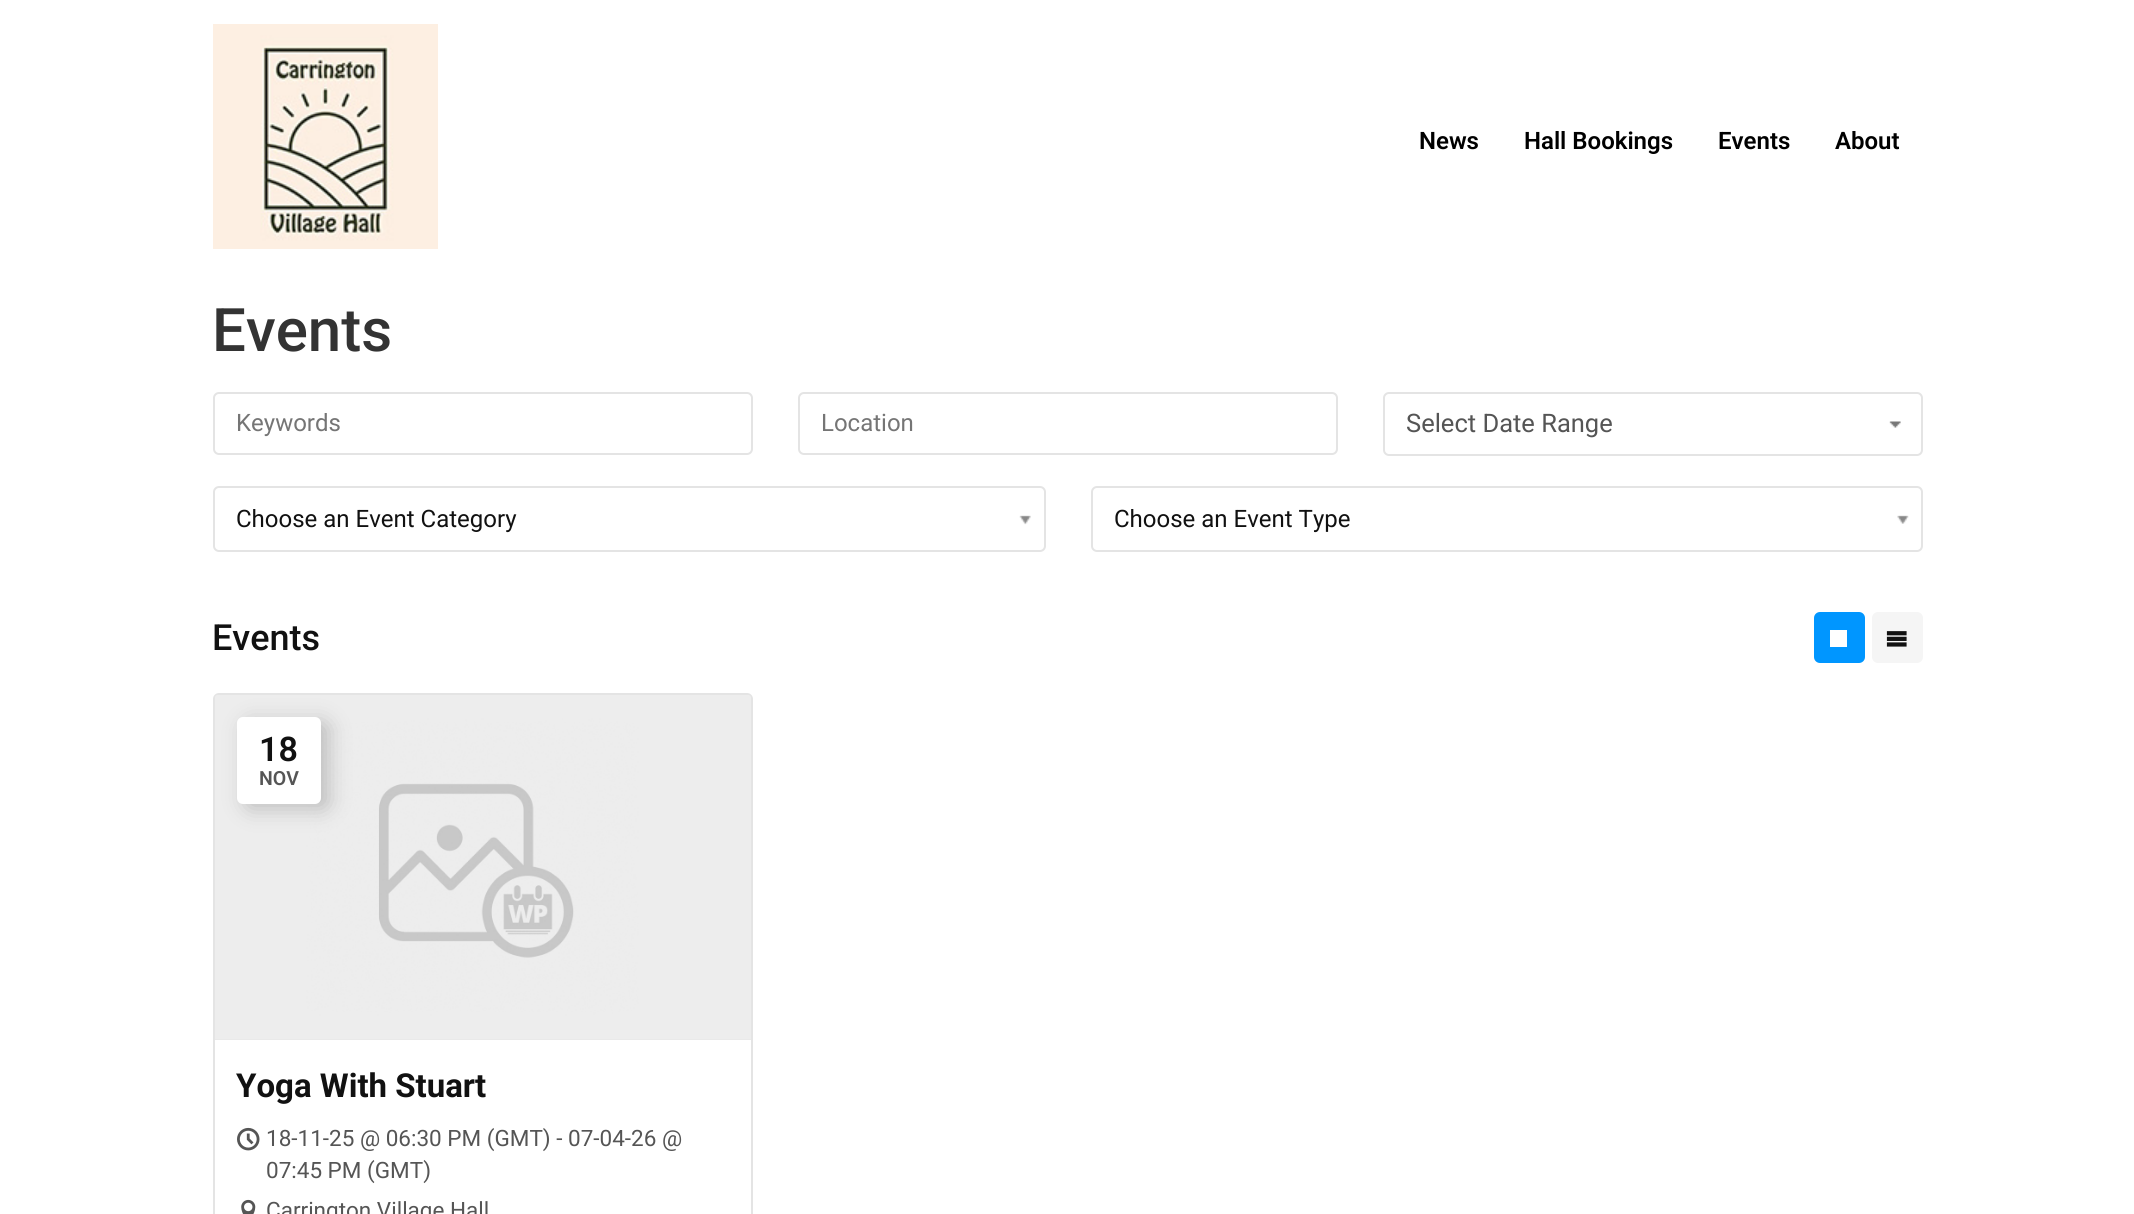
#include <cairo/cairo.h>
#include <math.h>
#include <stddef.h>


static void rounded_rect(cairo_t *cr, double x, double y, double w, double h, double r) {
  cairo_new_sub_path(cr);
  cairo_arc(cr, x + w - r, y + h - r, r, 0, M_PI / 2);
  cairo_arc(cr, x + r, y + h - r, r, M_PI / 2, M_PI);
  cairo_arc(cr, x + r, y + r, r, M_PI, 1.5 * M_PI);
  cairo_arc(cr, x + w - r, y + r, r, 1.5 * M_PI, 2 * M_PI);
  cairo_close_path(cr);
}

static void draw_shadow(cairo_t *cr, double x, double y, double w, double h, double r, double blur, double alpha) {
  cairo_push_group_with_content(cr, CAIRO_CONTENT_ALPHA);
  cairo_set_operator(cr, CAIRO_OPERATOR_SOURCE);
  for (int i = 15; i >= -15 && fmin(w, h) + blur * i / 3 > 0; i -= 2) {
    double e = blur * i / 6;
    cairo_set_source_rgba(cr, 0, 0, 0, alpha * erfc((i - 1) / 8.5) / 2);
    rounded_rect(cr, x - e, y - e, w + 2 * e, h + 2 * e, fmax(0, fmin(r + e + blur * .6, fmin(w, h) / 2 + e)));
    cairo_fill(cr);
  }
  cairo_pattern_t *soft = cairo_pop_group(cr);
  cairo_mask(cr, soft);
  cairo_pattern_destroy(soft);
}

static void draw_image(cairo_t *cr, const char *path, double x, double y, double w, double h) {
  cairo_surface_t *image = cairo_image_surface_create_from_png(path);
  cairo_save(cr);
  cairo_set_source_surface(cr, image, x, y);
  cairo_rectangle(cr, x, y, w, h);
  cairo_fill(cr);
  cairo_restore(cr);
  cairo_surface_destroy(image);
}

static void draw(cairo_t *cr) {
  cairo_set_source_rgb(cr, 1, 1, 1);
  cairo_paint(cr);
  draw_image(cr, "images/1.png", 213, 24, 225, 225);
  rounded_rect(cr, 214, 393, 538, 61, 5);
  cairo_set_source_rgb(cr, 228 / 255.0, 228 / 255.0, 228 / 255.0);
  cairo_stroke(cr);
  rounded_rect(cr, 799, 393, 538, 61, 5);
  cairo_stroke(cr);
  rounded_rect(cr, 1384, 393, 538, 62, 5);
  cairo_stroke(cr);
  draw_image(cr, "images/2.png", 1889, 421, 12, 7);
  rounded_rect(cr, 214, 487, 831, 64, 5);
  cairo_stroke(cr);
  draw_image(cr, "images/3.png", 1019, 515, 12, 10);
  rounded_rect(cr, 1092, 487, 830, 64, 5);
  cairo_stroke(cr);
  draw_image(cr, "images/4.png", 1897, 515, 12, 9);
  cairo_set_source_rgb(cr, 0, 150 / 255.0, 1);
  rounded_rect(cr, 1814, 612, 51, 51, 6);
  cairo_fill(cr);
  cairo_set_source_rgb(cr, 1, 1, 1);
  cairo_rectangle(cr, 1830, 630, 17, 17);
  cairo_fill(cr);
  cairo_set_source_rgb(cr, 245 / 255.0, 245 / 255.0, 245 / 255.0);
  rounded_rect(cr, 1872, 612, 51, 51, 6);
  cairo_fill(cr);
  draw_image(cr, "images/5.png", 1886, 631, 21, 16);
  rounded_rect(cr, 214, 694, 538, 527, 5);
  cairo_set_source_rgb(cr, 228 / 255.0, 228 / 255.0, 228 / 255.0);
  cairo_stroke(cr);
  cairo_new_path(cr);
  cairo_move_to(cr, 220, 695);
  cairo_line_to(cr, 747, 695);
  cairo_curve_to(cr, 750, 695, 752, 697, 752, 700);
  cairo_line_to(cr, 752, 1040);
  cairo_line_to(cr, 215, 1040);
  cairo_line_to(cr, 215, 700);
  cairo_curve_to(cr, 215, 697, 217, 695, 220, 695);
  cairo_close_path(cr);
  cairo_fill(cr);
  draw_image(cr, "images/6.png", 215, 695, 536, 345);
  cairo_set_source_rgb(cr, 0, 0, 0);
  draw_shadow(cr, 245, 722, 84, 87, 6, 11, 0.2);
  cairo_set_source_rgb(cr, 1, 1, 1);
  rounded_rect(cr, 237, 717, 84, 87, 6);
  cairo_fill(cr);
  draw_image(cr, "images/7.png", 237, 1127, 23, 24);
  draw_image(cr, "images/8.png", 241, 1199, 15, 15);
  cairo_select_font_face(cr, "Roboto SemiBold", CAIRO_FONT_SLANT_NORMAL, CAIRO_FONT_WEIGHT_NORMAL);
  cairo_set_font_size(cr, 24);
  cairo_set_source_rgb(cr, 0, 0, 0);
  cairo_move_to(cr, 1419, 149);
  cairo_show_text(cr, "News");
  cairo_move_to(cr, 1524, 149);
  cairo_show_text(cr, "Hall Bookings");
  cairo_move_to(cr, 1718, 149);
  cairo_show_text(cr, "Events");
  cairo_move_to(cr, 1835, 149);
  cairo_show_text(cr, "About");
  cairo_select_font_face(cr, "Roboto Medium", CAIRO_FONT_SLANT_NORMAL, CAIRO_FONT_WEIGHT_NORMAL);
  cairo_set_font_size(cr, 60);
  cairo_set_source_rgb(cr, 51 / 255.0, 51 / 255.0, 51 / 255.0);
  cairo_move_to(cr, 212, 351);
  cairo_show_text(cr, "Events");
  cairo_select_font_face(cr, "Roboto", CAIRO_FONT_SLANT_NORMAL, CAIRO_FONT_WEIGHT_NORMAL);
  cairo_set_font_size(cr, 24);
  cairo_set_source_rgb(cr, 117 / 255.0, 117 / 255.0, 117 / 255.0);
  cairo_move_to(cr, 236, 431);
  cairo_show_text(cr, "Keywords");
  cairo_move_to(cr, 821, 431);
  cairo_show_text(cr, "Location");
  cairo_set_font_size(cr, 25.5);
  cairo_set_source_rgb(cr, 85 / 255.0, 85 / 255.0, 85 / 255.0);
  cairo_move_to(cr, 1406, 432);
  cairo_show_text(cr, "Select Date Range");
  cairo_set_font_size(cr, 24);
  cairo_set_source_rgb(cr, 17 / 255.0, 17 / 255.0, 17 / 255.0);
  cairo_move_to(cr, 236, 527);
  cairo_show_text(cr, "Choose an Event Category");
  cairo_move_to(cr, 1114, 527);
  cairo_show_text(cr, "Choose an Event Type");
  cairo_select_font_face(cr, "Roboto Medium", CAIRO_FONT_SLANT_NORMAL, CAIRO_FONT_WEIGHT_NORMAL);
  cairo_set_font_size(cr, 36);
  cairo_move_to(cr, 212, 650);
  cairo_show_text(cr, "Events");
  cairo_select_font_face(cr, "Roboto SemiBold", CAIRO_FONT_SLANT_NORMAL, CAIRO_FONT_WEIGHT_NORMAL);
  cairo_set_font_size(cr, 34);
  cairo_move_to(cr, 259, 761);
  cairo_show_text(cr, "18");
  cairo_set_font_size(cr, 19.5);
  cairo_set_source_rgb(cr, 85 / 255.0, 85 / 255.0, 85 / 255.0);
  cairo_move_to(cr, 259, 785);
  cairo_show_text(cr, "NOV");
  cairo_select_font_face(cr, "Roboto", CAIRO_FONT_SLANT_NORMAL, CAIRO_FONT_WEIGHT_BOLD);
  cairo_set_font_size(cr, 33);
  cairo_set_source_rgb(cr, 17 / 255.0, 17 / 255.0, 17 / 255.0);
  cairo_move_to(cr, 236, 1097);
  cairo_show_text(cr, "Yoga With Stuart");
  cairo_select_font_face(cr, "Roboto", CAIRO_FONT_SLANT_NORMAL, CAIRO_FONT_WEIGHT_NORMAL);
  cairo_set_font_size(cr, 22.5);
  cairo_set_source_rgb(cr, 85 / 255.0, 85 / 255.0, 85 / 255.0);
  cairo_move_to(cr, 266, 1146);
  cairo_show_text(cr, "18-11-25 @ 06:30 PM (GMT) - 07-04-26 @");
  cairo_move_to(cr, 266, 1178);
  cairo_show_text(cr, "07:45 PM (GMT)");
  cairo_move_to(cr, 266, 1218);
  cairo_show_text(cr, "Carrington Village Hall");
}

int main(void) {
  cairo_surface_t *surface = cairo_image_surface_create(CAIRO_FORMAT_RGB24, 2134, 1214);
  cairo_t *cr = cairo_create(surface);
  cairo_font_options_t *options = cairo_font_options_create();
  cairo_font_options_set_hint_metrics(options, CAIRO_HINT_METRICS_OFF);
  cairo_font_options_set_hint_style(options, CAIRO_HINT_STYLE_NONE);
  cairo_set_font_options(cr, options);
  cairo_set_miter_limit(cr, 4);
  draw(cr);
  cairo_surface_write_to_png(surface, "out.png");
  cairo_font_options_destroy(options);
  cairo_destroy(cr);
  cairo_surface_destroy(surface);
  return 0;
}
